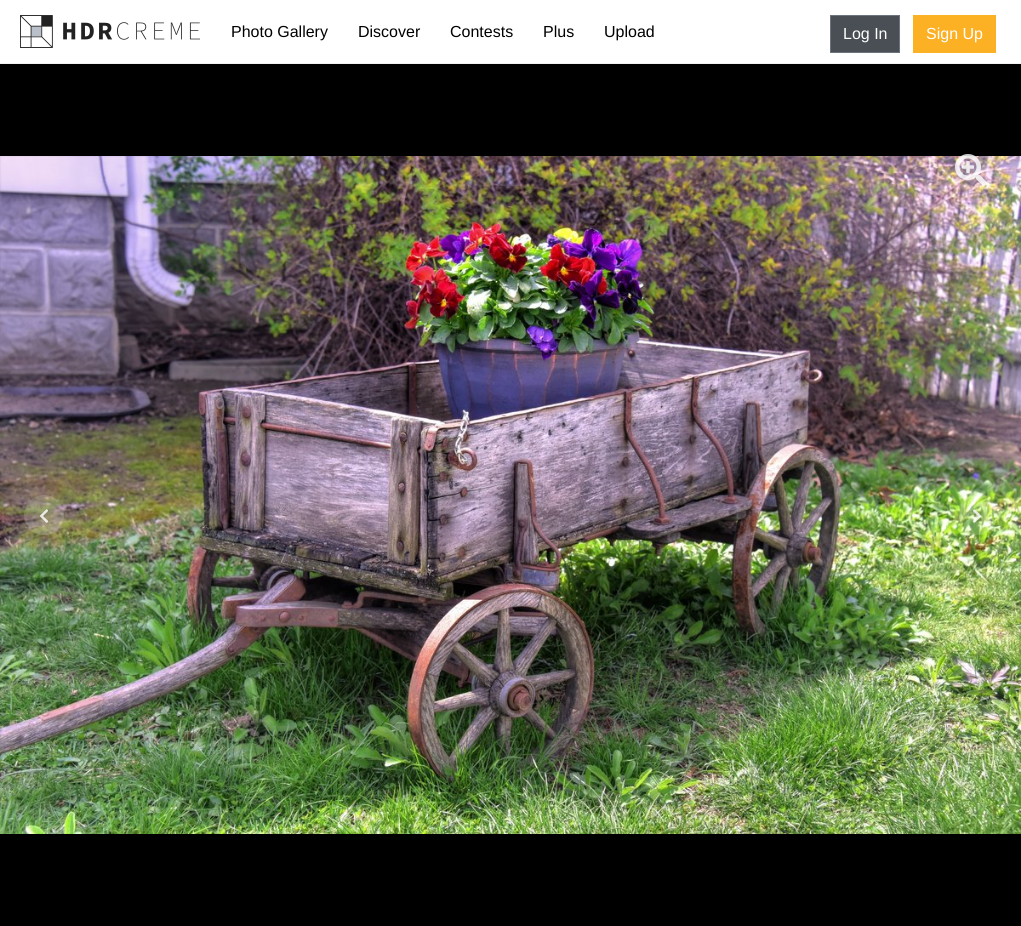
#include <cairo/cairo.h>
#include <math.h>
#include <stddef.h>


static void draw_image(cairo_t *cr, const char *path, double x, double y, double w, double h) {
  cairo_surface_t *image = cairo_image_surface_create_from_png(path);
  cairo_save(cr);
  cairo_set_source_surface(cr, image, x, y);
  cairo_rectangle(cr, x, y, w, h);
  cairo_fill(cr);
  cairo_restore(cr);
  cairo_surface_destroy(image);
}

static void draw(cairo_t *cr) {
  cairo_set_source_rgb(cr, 1, 1, 1);
  cairo_paint(cr);
  cairo_set_source_rgb(cr, 242 / 255.0, 242 / 255.0, 242 / 255.0);
  cairo_rectangle(cr, 0, 63, 1021, 1);
  cairo_fill(cr);
  draw_image(cr, "images/1.png", 20, 15, 180, 33);
  cairo_set_source_rgb(cr, 73 / 255.0, 79 / 255.0, 84 / 255.0);
  cairo_rectangle(cr, 830.5, 15.5, 69, 37);
  cairo_fill_preserve(cr);
  cairo_set_source_rgb(cr, 108 / 255.0, 117 / 255.0, 125 / 255.0);
  cairo_set_line_width(cr, 1);
  cairo_stroke(cr);
  cairo_set_source_rgb(cr, 252 / 255.0, 176 / 255.0, 35 / 255.0);
  cairo_rectangle(cr, 913, 15, 83, 38);
  cairo_fill(cr);
  cairo_set_source_rgb(cr, 0, 0, 0);
  cairo_rectangle(cr, 0, 64, 1021, 862);
  cairo_fill(cr);
  draw_image(cr, "images/3.png", 0, 156, 1021, 678);
  draw_image(cr, "images/2.png", 955, 154, 32, 32);
  cairo_set_source_rgba(cr, 1, 1, 1, 0.16);
  cairo_arc(cr, 44, 515, 20, 0, 2 * M_PI);
  cairo_fill(cr);
  draw_image(cr, "images/4.png", 40, 509, 9, 14);
  cairo_arc(cr, 977, 515, 20, 0, 2 * M_PI);
  cairo_fill(cr);
  draw_image(cr, "images/5.png", 972, 509, 9, 14);
  cairo_select_font_face(cr, "Liberation Sans", CAIRO_FONT_SLANT_NORMAL, CAIRO_FONT_WEIGHT_NORMAL);
  cairo_set_font_size(cr, 16);
  cairo_set_source_rgb(cr, 0, 0, 0);
  cairo_move_to(cr, 231, 37);
  cairo_show_text(cr, "Photo Gallery");
  cairo_move_to(cr, 358, 37);
  cairo_show_text(cr, "Discover");
  cairo_move_to(cr, 450, 37);
  cairo_show_text(cr, "Contests");
  cairo_move_to(cr, 543, 37);
  cairo_show_text(cr, "Plus");
  cairo_move_to(cr, 604, 37);
  cairo_show_text(cr, "Upload");
  cairo_set_source_rgb(cr, 1, 1, 1);
  cairo_move_to(cr, 843, 39);
  cairo_show_text(cr, "Log In");
  cairo_move_to(cr, 926, 39);
  cairo_show_text(cr, "Sign Up");
}

int main(void) {
  cairo_surface_t *surface = cairo_image_surface_create(CAIRO_FORMAT_RGB24, 1021, 926);
  cairo_t *cr = cairo_create(surface);
  cairo_font_options_t *options = cairo_font_options_create();
  cairo_font_options_set_hint_metrics(options, CAIRO_HINT_METRICS_OFF);
  cairo_font_options_set_hint_style(options, CAIRO_HINT_STYLE_NONE);
  cairo_set_font_options(cr, options);
  cairo_set_miter_limit(cr, 4);
  draw(cr);
  cairo_surface_write_to_png(surface, "out.png");
  cairo_font_options_destroy(options);
  cairo_destroy(cr);
  cairo_surface_destroy(surface);
  return 0;
}
